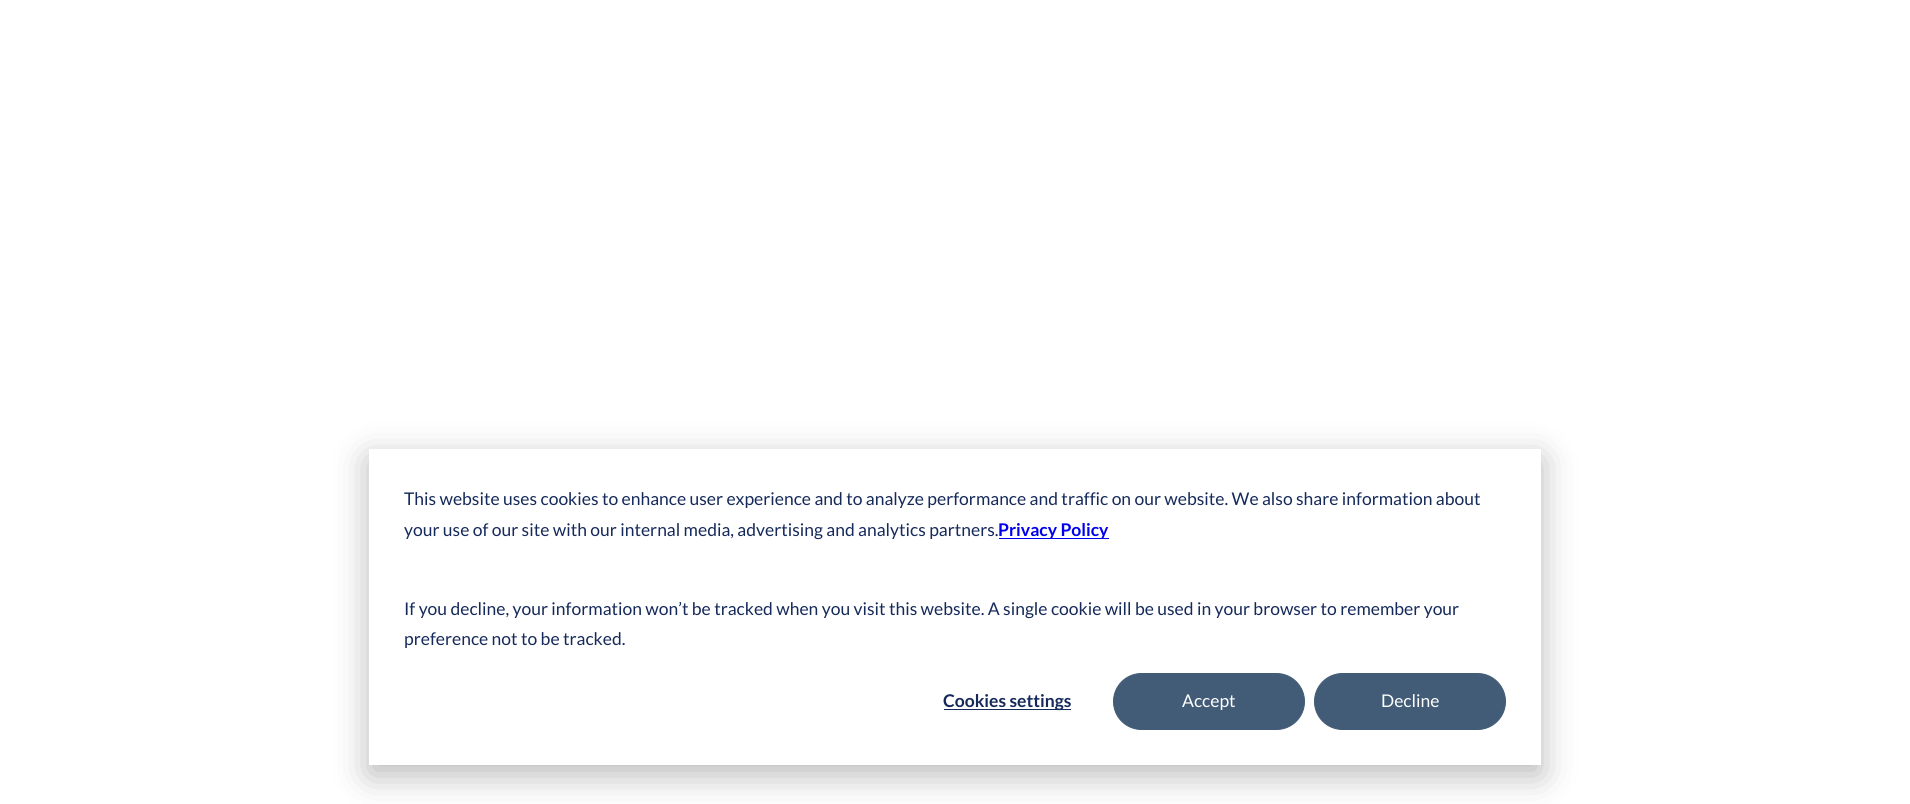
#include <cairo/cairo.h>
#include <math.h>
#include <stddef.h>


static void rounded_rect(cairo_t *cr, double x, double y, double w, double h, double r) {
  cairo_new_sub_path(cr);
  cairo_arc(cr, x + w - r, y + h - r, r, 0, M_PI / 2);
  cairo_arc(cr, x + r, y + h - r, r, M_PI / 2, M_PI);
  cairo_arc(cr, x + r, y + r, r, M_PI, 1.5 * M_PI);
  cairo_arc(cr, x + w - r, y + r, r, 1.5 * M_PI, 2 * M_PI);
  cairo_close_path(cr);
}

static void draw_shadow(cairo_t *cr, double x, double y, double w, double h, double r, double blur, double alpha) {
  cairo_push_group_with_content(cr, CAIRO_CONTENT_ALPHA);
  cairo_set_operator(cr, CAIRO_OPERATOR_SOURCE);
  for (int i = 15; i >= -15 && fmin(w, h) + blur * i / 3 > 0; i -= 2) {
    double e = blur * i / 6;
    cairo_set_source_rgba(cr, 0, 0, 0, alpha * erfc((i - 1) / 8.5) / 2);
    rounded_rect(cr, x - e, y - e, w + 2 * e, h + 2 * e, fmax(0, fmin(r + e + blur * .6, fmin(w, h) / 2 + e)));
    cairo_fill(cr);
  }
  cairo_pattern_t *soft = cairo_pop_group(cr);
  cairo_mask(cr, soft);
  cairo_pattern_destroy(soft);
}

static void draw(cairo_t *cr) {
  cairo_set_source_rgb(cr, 1, 1, 1);
  cairo_paint(cr);
  cairo_save(cr);
  cairo_set_fill_rule(cr, CAIRO_FILL_RULE_EVEN_ODD);
  cairo_new_path(cr);
  cairo_move_to(cr, 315, 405);
  cairo_line_to(cr, 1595, 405);
  cairo_line_to(cr, 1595, 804);
  cairo_line_to(cr, 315, 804);
  cairo_close_path(cr);
  cairo_move_to(cr, 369, 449);
  cairo_line_to(cr, 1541, 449);
  cairo_line_to(cr, 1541, 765);
  cairo_line_to(cr, 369, 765);
  cairo_close_path(cr);
  cairo_clip(cr);
  cairo_set_source_rgb(cr, 0, 0, 0);
  draw_shadow(cr, 369, 459, 1172, 316, 0, 17.5, 0.28);
  cairo_restore(cr);
  cairo_set_source_rgb(cr, 0, 0, 238 / 255.0);
  cairo_rectangle(cr, 999, 538, 110, 1);
  cairo_fill(cr);
  cairo_set_source_rgb(cr, 21 / 255.0, 41 / 255.0, 90 / 255.0);
  cairo_rectangle(cr, 944, 709, 127, 1);
  cairo_fill(cr);
  cairo_set_source_rgb(cr, 66 / 255.0, 91 / 255.0, 118 / 255.0);
  rounded_rect(cr, 1113.5, 673.5, 191, 56, 28);
  cairo_fill_preserve(cr);
  cairo_set_line_width(cr, 1);
  cairo_stroke(cr);
  rounded_rect(cr, 1314.5, 673.5, 191, 56, 28);
  cairo_fill_preserve(cr);
  cairo_stroke(cr);
  cairo_select_font_face(cr, "Lato", CAIRO_FONT_SLANT_NORMAL, CAIRO_FONT_WEIGHT_NORMAL);
  cairo_set_font_size(cr, 17.5);
  cairo_set_source_rgb(cr, 21 / 255.0, 41 / 255.0, 90 / 255.0);
  cairo_move_to(cr, 404, 505);
  cairo_show_text(cr, "This website uses cookies to enhance user experience and to analyze performance and traffic on our website. We also share information about");
  cairo_move_to(cr, 404, 536);
  cairo_show_text(cr, "your use of our site with our internal media, advertising and analytics partners.");
  cairo_select_font_face(cr, "Lato", CAIRO_FONT_SLANT_NORMAL, CAIRO_FONT_WEIGHT_BOLD);
  cairo_set_source_rgb(cr, 0, 0, 238 / 255.0);
  cairo_move_to(cr, 998, 536);
  cairo_show_text(cr, "Privacy Policy");
  cairo_select_font_face(cr, "Lato", CAIRO_FONT_SLANT_NORMAL, CAIRO_FONT_WEIGHT_NORMAL);
  cairo_set_source_rgb(cr, 21 / 255.0, 41 / 255.0, 90 / 255.0);
  cairo_move_to(cr, 404, 615);
  cairo_show_text(cr, "If you decline, your information won’t be tracked when you visit this website. A single cookie will be used in your browser to remember your");
  cairo_move_to(cr, 404, 645);
  cairo_show_text(cr, "preference not to be tracked.");
  cairo_select_font_face(cr, "Lato", CAIRO_FONT_SLANT_NORMAL, CAIRO_FONT_WEIGHT_BOLD);
  cairo_move_to(cr, 943, 707);
  cairo_show_text(cr, "Cookies settings");
  cairo_select_font_face(cr, "Lato", CAIRO_FONT_SLANT_NORMAL, CAIRO_FONT_WEIGHT_NORMAL);
  cairo_set_source_rgb(cr, 1, 1, 1);
  cairo_move_to(cr, 1182, 707);
  cairo_show_text(cr, "Accept");
  cairo_move_to(cr, 1381, 707);
  cairo_show_text(cr, "Decline");
}

int main(void) {
  cairo_surface_t *surface = cairo_image_surface_create(CAIRO_FORMAT_RGB24, 1910, 804);
  cairo_t *cr = cairo_create(surface);
  cairo_font_options_t *options = cairo_font_options_create();
  cairo_font_options_set_hint_metrics(options, CAIRO_HINT_METRICS_OFF);
  cairo_font_options_set_hint_style(options, CAIRO_HINT_STYLE_NONE);
  cairo_set_font_options(cr, options);
  cairo_set_miter_limit(cr, 4);
  draw(cr);
  cairo_surface_write_to_png(surface, "out.png");
  cairo_font_options_destroy(options);
  cairo_destroy(cr);
  cairo_surface_destroy(surface);
  return 0;
}
